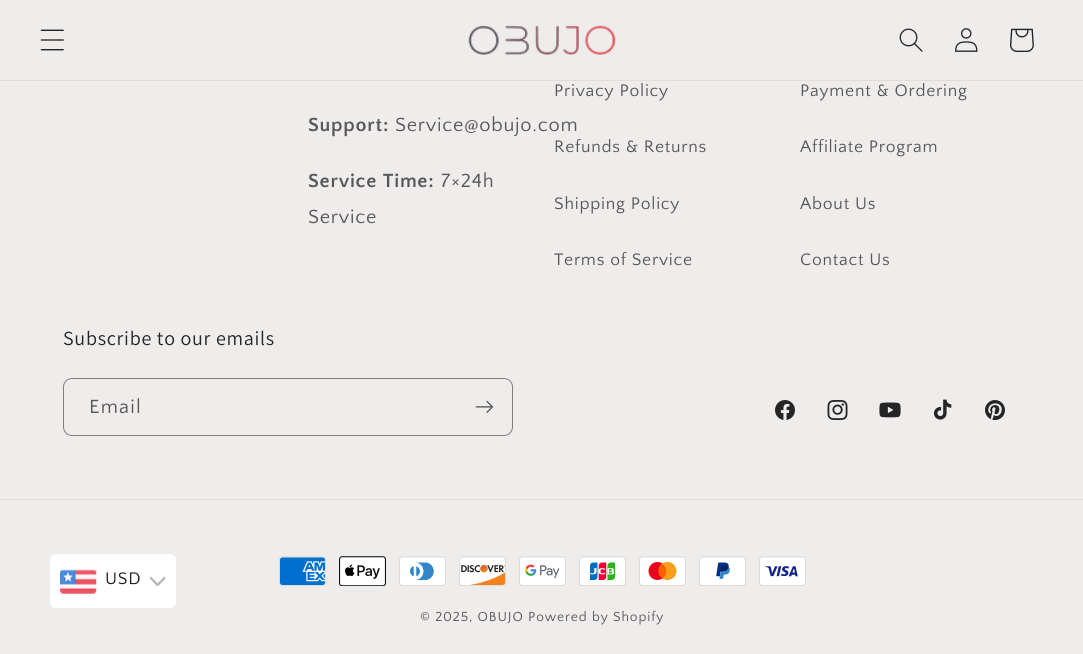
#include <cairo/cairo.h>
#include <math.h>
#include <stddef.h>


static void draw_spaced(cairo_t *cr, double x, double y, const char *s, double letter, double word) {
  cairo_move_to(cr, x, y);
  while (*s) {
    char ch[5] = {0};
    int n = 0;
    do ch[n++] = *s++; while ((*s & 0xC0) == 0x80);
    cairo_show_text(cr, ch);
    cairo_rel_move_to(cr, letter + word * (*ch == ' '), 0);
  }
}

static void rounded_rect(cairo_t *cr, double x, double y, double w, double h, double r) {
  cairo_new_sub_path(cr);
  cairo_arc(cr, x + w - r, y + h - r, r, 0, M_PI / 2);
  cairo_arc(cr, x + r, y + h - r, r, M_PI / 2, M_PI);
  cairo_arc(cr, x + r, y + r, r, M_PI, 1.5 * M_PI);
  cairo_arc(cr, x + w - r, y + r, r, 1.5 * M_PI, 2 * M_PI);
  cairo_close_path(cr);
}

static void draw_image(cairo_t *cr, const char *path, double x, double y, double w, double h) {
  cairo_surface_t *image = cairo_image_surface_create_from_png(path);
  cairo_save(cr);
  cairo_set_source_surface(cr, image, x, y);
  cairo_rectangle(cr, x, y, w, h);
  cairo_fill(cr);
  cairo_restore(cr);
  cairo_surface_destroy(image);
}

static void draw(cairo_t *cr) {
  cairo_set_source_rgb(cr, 239 / 255.0, 236 / 255.0, 236 / 255.0);
  cairo_paint(cr);
  cairo_set_source_rgb(cr, 223 / 255.0, 220 / 255.0, 220 / 255.0);
  cairo_rectangle(cr, 0, 80, 1083, 1);
  cairo_fill(cr);
  draw_image(cr, "images/1.png", 40, 29, 24, 22);
  draw_image(cr, "images/2.png", 468, 25, 148, 30);
  draw_image(cr, "images/3.png", 899, 28, 24, 24);
  draw_image(cr, "images/4.png", 955, 28, 23, 24);
  draw_image(cr, "images/5.png", 1010, 28, 24, 24);
  rounded_rect(cr, 63.5, 378.5, 449, 57, 8.5);
  cairo_set_source_rgb(cr, 128 / 255.0, 127 / 255.0, 127 / 255.0);
  cairo_set_line_width(cr, 1);
  cairo_stroke(cr);
  draw_image(cr, "images/6.png", 475, 400, 18, 13);
  draw_image(cr, "images/7.png", 775, 400, 20, 20);
  draw_image(cr, "images/8.png", 827, 400, 21, 20);
  draw_image(cr, "images/9.png", 879, 402, 22, 16);
  draw_image(cr, "images/10.png", 933, 399, 19, 21);
  draw_image(cr, "images/11.png", 985, 400, 20, 20);
  cairo_set_source_rgb(cr, 223 / 255.0, 220 / 255.0, 220 / 255.0);
  cairo_rectangle(cr, 0, 499, 1083, 1);
  cairo_fill(cr);
  draw_image(cr, "images/12.png", 279, 556, 47, 30);
  draw_image(cr, "images/13.png", 339, 556, 47, 30);
  draw_image(cr, "images/14.png", 399, 556, 47, 30);
  draw_image(cr, "images/15.png", 459, 556, 47, 30);
  draw_image(cr, "images/16.png", 519, 556, 47, 30);
  draw_image(cr, "images/17.png", 579, 556, 47, 30);
  draw_image(cr, "images/18.png", 639, 556, 47, 30);
  draw_image(cr, "images/19.png", 699, 556, 47, 30);
  draw_image(cr, "images/20.png", 759, 556, 47, 30);
  cairo_set_source_rgb(cr, 1, 1, 1);
  rounded_rect(cr, 50, 554, 126, 54, 6);
  cairo_fill(cr);
  draw_image(cr, "images/21.png", 60, 569, 37, 25);
  cairo_new_path(cr);
  cairo_move_to(cr, 151, 578);
  cairo_line_to(cr, 157.5, 585);
  cairo_line_to(cr, 164.5, 578);
  cairo_set_source_rgb(cr, 183 / 255.0, 183 / 255.0, 183 / 255.0);
  cairo_set_line_width(cr, 2.3);
  cairo_set_line_cap(cr, CAIRO_LINE_CAP_ROUND);
  cairo_set_line_join(cr, CAIRO_LINE_JOIN_ROUND);
  cairo_stroke(cr);
  cairo_select_font_face(cr, "Quattrocento Sans", CAIRO_FONT_SLANT_NORMAL, CAIRO_FONT_WEIGHT_BOLD);
  cairo_set_font_size(cr, 20);
  cairo_set_source_rgb(cr, 88 / 255.0, 87 / 255.0, 87 / 255.0);
  draw_spaced(cr, 308, 131, "Support:", 0.75, 0);
  cairo_select_font_face(cr, "Quattrocento Sans", CAIRO_FONT_SLANT_NORMAL, CAIRO_FONT_WEIGHT_NORMAL);
  draw_spaced(cr, 395, 131, "Service@obujo.com", 0.75, 0);
  cairo_select_font_face(cr, "Quattrocento Sans", CAIRO_FONT_SLANT_NORMAL, CAIRO_FONT_WEIGHT_BOLD);
  draw_spaced(cr, 308, 187, "Service Time:", 0.75, 0);
  cairo_select_font_face(cr, "Quattrocento Sans", CAIRO_FONT_SLANT_NORMAL, CAIRO_FONT_WEIGHT_NORMAL);
  draw_spaced(cr, 441, 187, "7×24h", 0.75, 0);
  draw_spaced(cr, 308, 223, "Service", 0.75, 0);
  cairo_set_font_size(cr, 17.5);
  draw_spaced(cr, 554, 96, "Privacy Policy", 0.75, 0);
  draw_spaced(cr, 554, 152, "Refunds & Returns", 0.75, 0);
  draw_spaced(cr, 554, 209, "Shipping Policy", 0.75, 0);
  draw_spaced(cr, 554, 265, "Terms of Service", 0.75, 0);
  draw_spaced(cr, 800, 96, "Payment & Ordering", 0.75, 0);
  draw_spaced(cr, 800, 152, "Affiliate Program", 0.75, 0);
  draw_spaced(cr, 800, 209, "About Us", 0.75, 0);
  draw_spaced(cr, 800, 265, "Contact Us", 0.75, 0);
  cairo_select_font_face(cr, "Assistant", CAIRO_FONT_SLANT_NORMAL, CAIRO_FONT_WEIGHT_NORMAL);
  cairo_set_font_size(cr, 20);
  cairo_set_source_rgb(cr, 37 / 255.0, 37 / 255.0, 37 / 255.0);
  draw_spaced(cr, 63, 345, "Subscribe to our emails", 0.75, 0);
  cairo_select_font_face(cr, "Quattrocento Sans", CAIRO_FONT_SLANT_NORMAL, CAIRO_FONT_WEIGHT_NORMAL);
  cairo_set_source_rgb(cr, 88 / 255.0, 87 / 255.0, 87 / 255.0);
  draw_spaced(cr, 89, 413, "Email", 1.25, 0);
  cairo_set_font_size(cr, 13.75);
  draw_spaced(cr, 420, 621, "© 2025, OBUJO", 0.9, 0);
  draw_spaced(cr, 528, 621, "Powered by Shopify", 0.9, 0);
  cairo_set_font_size(cr, 17.5);
  cairo_set_source_rgb(cr, 30 / 255.0, 30 / 255.0, 30 / 255.0);
  draw_spaced(cr, 105, 584, "USD", 0.75, 0);
}

int main(void) {
  cairo_surface_t *surface = cairo_image_surface_create(CAIRO_FORMAT_RGB24, 1083, 654);
  cairo_t *cr = cairo_create(surface);
  cairo_font_options_t *options = cairo_font_options_create();
  cairo_font_options_set_hint_metrics(options, CAIRO_HINT_METRICS_OFF);
  cairo_font_options_set_hint_style(options, CAIRO_HINT_STYLE_NONE);
  cairo_set_font_options(cr, options);
  cairo_set_miter_limit(cr, 4);
  draw(cr);
  cairo_surface_write_to_png(surface, "out.png");
  cairo_font_options_destroy(options);
  cairo_destroy(cr);
  cairo_surface_destroy(surface);
  return 0;
}
